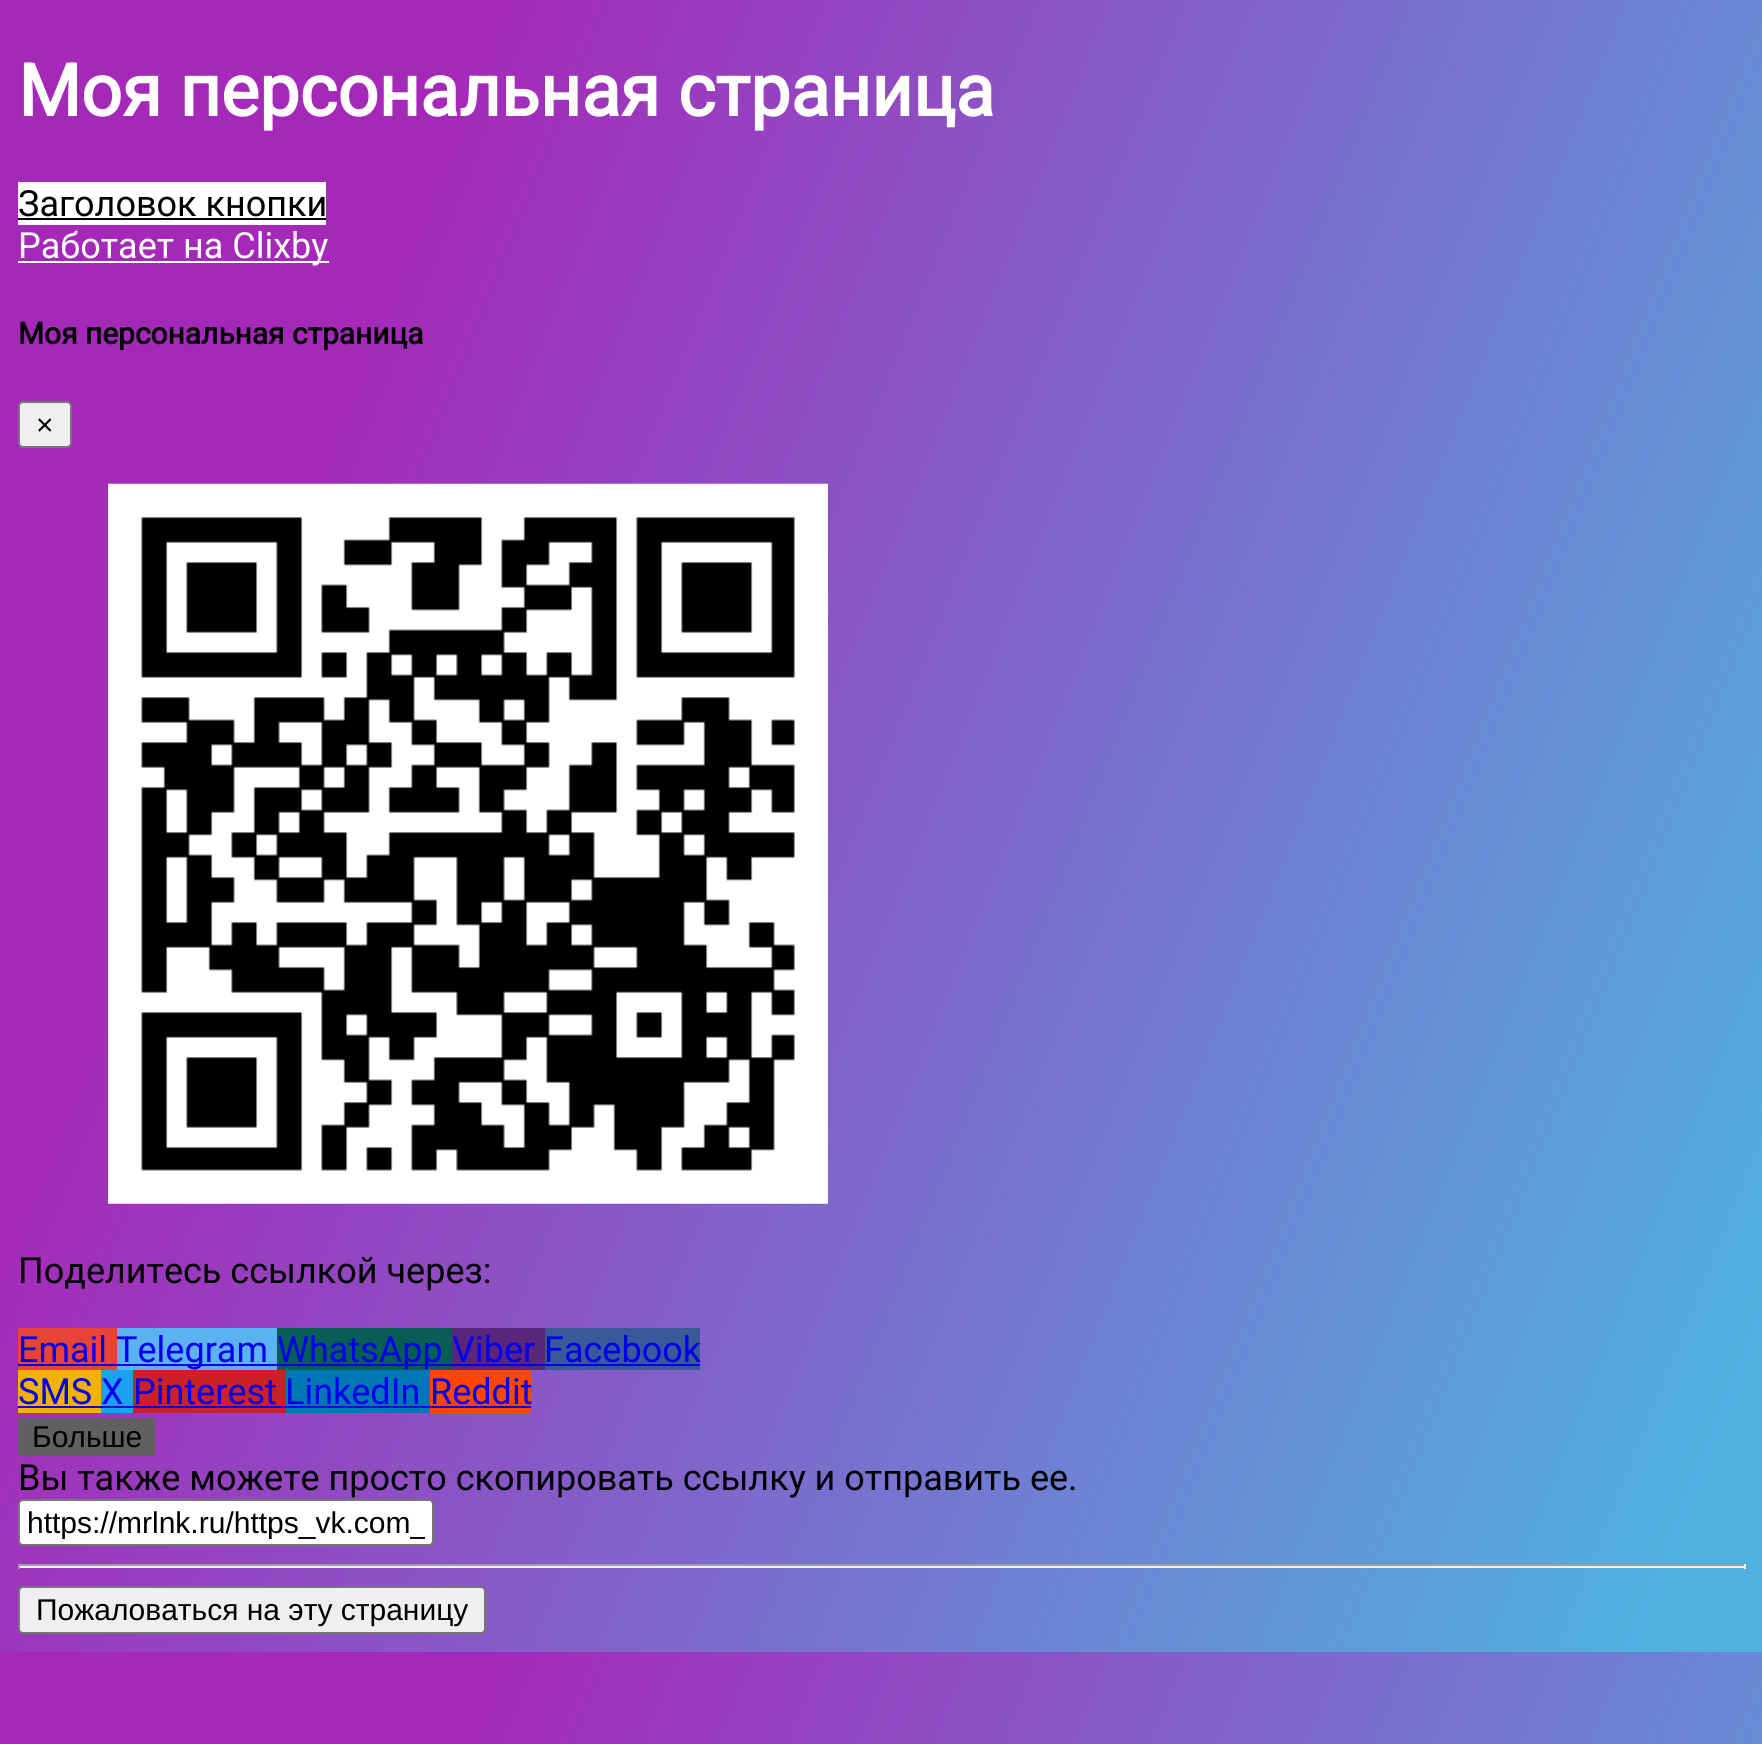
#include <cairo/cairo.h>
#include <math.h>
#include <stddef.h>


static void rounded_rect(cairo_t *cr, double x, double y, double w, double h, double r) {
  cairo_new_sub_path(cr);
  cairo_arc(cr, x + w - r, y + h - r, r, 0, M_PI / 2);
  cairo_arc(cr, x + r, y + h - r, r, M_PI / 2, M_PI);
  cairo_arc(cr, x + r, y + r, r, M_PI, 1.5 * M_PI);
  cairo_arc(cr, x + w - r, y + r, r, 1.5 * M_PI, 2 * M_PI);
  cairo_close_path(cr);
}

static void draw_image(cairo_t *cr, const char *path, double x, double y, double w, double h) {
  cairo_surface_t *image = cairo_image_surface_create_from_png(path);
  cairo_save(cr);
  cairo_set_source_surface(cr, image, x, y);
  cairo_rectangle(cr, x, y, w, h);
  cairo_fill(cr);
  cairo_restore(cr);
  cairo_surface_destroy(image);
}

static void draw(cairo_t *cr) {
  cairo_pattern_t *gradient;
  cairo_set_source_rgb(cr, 1, 1, 1);
  cairo_paint(cr);
  gradient = cairo_pattern_create_linear(-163, 410, 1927, 1242);
  cairo_pattern_add_color_stop_rgba(gradient, 0.2, 165 / 255.0, 41 / 255.0, 185 / 255.0, 1);
  cairo_pattern_add_color_stop_rgba(gradient, 0.95, 80 / 255.0, 177 / 255.0, 225 / 255.0, 1);
  cairo_set_source(cr, gradient);
  cairo_pattern_destroy(gradient);
  cairo_rectangle(cr, 0, 0, 1762, 1652);
  cairo_fill(cr);
  gradient = cairo_pattern_create_linear(-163, 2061, 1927, 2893);
  cairo_pattern_add_color_stop_rgba(gradient, 0.2, 165 / 255.0, 41 / 255.0, 185 / 255.0, 1);
  cairo_pattern_add_color_stop_rgba(gradient, 0.95, 80 / 255.0, 177 / 255.0, 225 / 255.0, 1);
  cairo_set_source(cr, gradient);
  cairo_pattern_destroy(gradient);
  cairo_rectangle(cr, 0, 1652, 1762, 92);
  cairo_fill(cr);
  cairo_set_source_rgb(cr, 1, 1, 1);
  cairo_rectangle(cr, 18, 182, 308, 43);
  cairo_fill(cr);
  cairo_set_source_rgb(cr, 0, 0, 0);
  cairo_rectangle(cr, 18, 218, 308, 2);
  cairo_fill(cr);
  cairo_set_source_rgb(cr, 1, 1, 1);
  cairo_rectangle(cr, 18, 261, 311, 2);
  cairo_fill(cr);
  cairo_set_source_rgb(cr, 239 / 255.0, 239 / 255.0, 239 / 255.0);
  rounded_rect(cr, 19, 402, 52, 45, 4);
  cairo_fill_preserve(cr);
  cairo_set_source_rgb(cr, 118 / 255.0, 118 / 255.0, 118 / 255.0);
  cairo_stroke(cr);
  draw_image(cr, "images/1.png", 108, 483, 720, 721);
  cairo_set_source_rgb(cr, 233 / 255.0, 67 / 255.0, 53 / 255.0);
  cairo_rectangle(cr, 18, 1328, 99, 42);
  cairo_fill(cr);
  cairo_set_source_rgb(cr, 0, 0, 238 / 255.0);
  cairo_rectangle(cr, 18, 1364, 99, 2);
  cairo_fill(cr);
  cairo_set_source_rgb(cr, 90 / 255.0, 179 / 255.0, 240 / 255.0);
  cairo_rectangle(cr, 117, 1328, 160, 42);
  cairo_fill(cr);
  cairo_set_source_rgb(cr, 0, 0, 238 / 255.0);
  cairo_rectangle(cr, 117, 1364, 160, 2);
  cairo_fill(cr);
  cairo_set_source_rgb(cr, 7 / 255.0, 94 / 255.0, 84 / 255.0);
  cairo_rectangle(cr, 277, 1328, 175, 42);
  cairo_fill(cr);
  cairo_set_source_rgb(cr, 0, 0, 238 / 255.0);
  cairo_rectangle(cr, 277, 1364, 175, 2);
  cairo_fill(cr);
  cairo_set_source_rgb(cr, 89 / 255.0, 38 / 255.0, 124 / 255.0);
  cairo_rectangle(cr, 452, 1328, 93, 42);
  cairo_fill(cr);
  cairo_set_source_rgb(cr, 0, 0, 238 / 255.0);
  cairo_rectangle(cr, 452, 1364, 93, 2);
  cairo_fill(cr);
  cairo_set_source_rgb(cr, 59 / 255.0, 89 / 255.0, 152 / 255.0);
  cairo_rectangle(cr, 545, 1328, 155, 42);
  cairo_fill(cr);
  cairo_set_source_rgb(cr, 0, 0, 238 / 255.0);
  cairo_rectangle(cr, 545, 1364, 155, 2);
  cairo_fill(cr);
  cairo_set_source_rgb(cr, 241 / 255.0, 178 / 255.0, 0);
  cairo_rectangle(cr, 18, 1370, 83, 43);
  cairo_fill(cr);
  cairo_set_source_rgb(cr, 0, 0, 238 / 255.0);
  cairo_rectangle(cr, 18, 1406, 83, 2);
  cairo_fill(cr);
  cairo_set_source_rgb(cr, 29 / 255.0, 161 / 255.0, 242 / 255.0);
  cairo_rectangle(cr, 101, 1370, 32, 43);
  cairo_fill(cr);
  cairo_set_source_rgb(cr, 0, 0, 238 / 255.0);
  cairo_rectangle(cr, 101, 1406, 32, 2);
  cairo_fill(cr);
  cairo_set_source_rgb(cr, 203 / 255.0, 32 / 255.0, 39 / 255.0);
  cairo_rectangle(cr, 133, 1370, 153, 43);
  cairo_fill(cr);
  cairo_set_source_rgb(cr, 0, 0, 238 / 255.0);
  cairo_rectangle(cr, 133, 1406, 153, 2);
  cairo_fill(cr);
  cairo_set_source_rgb(cr, 0, 119 / 255.0, 181 / 255.0);
  cairo_rectangle(cr, 286, 1370, 144, 43);
  cairo_fill(cr);
  cairo_set_source_rgb(cr, 0, 0, 238 / 255.0);
  cairo_rectangle(cr, 286, 1406, 144, 2);
  cairo_fill(cr);
  cairo_set_source_rgb(cr, 1, 69 / 255.0, 0);
  cairo_rectangle(cr, 430, 1370, 101, 43);
  cairo_fill(cr);
  cairo_set_source_rgb(cr, 0, 0, 238 / 255.0);
  cairo_rectangle(cr, 430, 1406, 101, 2);
  cairo_fill(cr);
  cairo_set_source_rgb(cr, 96 / 255.0, 96 / 255.0, 96 / 255.0);
  cairo_rectangle(cr, 18, 1418, 137, 38);
  cairo_fill(cr);
  cairo_set_source_rgb(cr, 1, 1, 1);
  rounded_rect(cr, 19, 1500, 414, 45, 4);
  cairo_fill_preserve(cr);
  cairo_set_source_rgb(cr, 118 / 255.0, 118 / 255.0, 118 / 255.0);
  cairo_stroke(cr);
  cairo_set_source_rgb(cr, 159 / 255.0, 159 / 255.0, 159 / 255.0);
  cairo_rectangle(cr, 18, 1564, 1728, 2);
  cairo_fill(cr);
  cairo_set_source_rgb(cr, 238 / 255.0, 238 / 255.0, 238 / 255.0);
  cairo_rectangle(cr, 1744, 1564, 2, 5);
  cairo_fill(cr);
  cairo_rectangle(cr, 18, 1566, 1728, 2);
  cairo_fill(cr);
  cairo_set_source_rgb(cr, 159 / 255.0, 159 / 255.0, 159 / 255.0);
  cairo_rectangle(cr, 18, 1564, 2, 5);
  cairo_fill(cr);
  cairo_set_source_rgb(cr, 239 / 255.0, 239 / 255.0, 239 / 255.0);
  rounded_rect(cr, 19, 1587, 466, 46, 4);
  cairo_fill_preserve(cr);
  cairo_set_source_rgb(cr, 118 / 255.0, 118 / 255.0, 118 / 255.0);
  cairo_stroke(cr);
  cairo_select_font_face(cr, "Roboto", CAIRO_FONT_SLANT_NORMAL, CAIRO_FONT_WEIGHT_BOLD);
  cairo_set_font_size(cr, 72);
  cairo_set_source_rgb(cr, 1, 1, 1);
  cairo_move_to(cr, 18, 116);
  cairo_show_text(cr, "Моя персональная страница");
  cairo_select_font_face(cr, "Roboto", CAIRO_FONT_SLANT_NORMAL, CAIRO_FONT_WEIGHT_NORMAL);
  cairo_set_font_size(cr, 36);
  cairo_set_source_rgb(cr, 0, 0, 0);
  cairo_move_to(cr, 18, 216);
  cairo_show_text(cr, "Заголовок кнопки");
  cairo_set_source_rgb(cr, 1, 1, 1);
  cairo_move_to(cr, 18, 258);
  cairo_show_text(cr, "Работает на Clixby");
  cairo_select_font_face(cr, "Roboto", CAIRO_FONT_SLANT_NORMAL, CAIRO_FONT_WEIGHT_BOLD);
  cairo_set_font_size(cr, 29.9);
  cairo_set_source_rgb(cr, 0, 0, 0);
  cairo_move_to(cr, 18, 344);
  cairo_show_text(cr, "Моя персональная страница");
  cairo_select_font_face(cr, "Liberation Sans", CAIRO_FONT_SLANT_NORMAL, CAIRO_FONT_WEIGHT_NORMAL);
  cairo_set_font_size(cr, 30);
  cairo_move_to(cr, 36, 435);
  cairo_show_text(cr, "×");
  cairo_select_font_face(cr, "Roboto", CAIRO_FONT_SLANT_NORMAL, CAIRO_FONT_WEIGHT_NORMAL);
  cairo_set_font_size(cr, 36);
  cairo_move_to(cr, 18, 1283);
  cairo_show_text(cr, "Поделитесь ссылкой через:");
  cairo_set_source_rgb(cr, 0, 0, 238 / 255.0);
  cairo_move_to(cr, 18, 1362);
  cairo_show_text(cr, "Email");
  cairo_move_to(cr, 116, 1362);
  cairo_show_text(cr, "Telegram");
  cairo_move_to(cr, 277, 1362);
  cairo_show_text(cr, "WhatsApp");
  cairo_move_to(cr, 452, 1362);
  cairo_show_text(cr, "Viber");
  cairo_move_to(cr, 544, 1362);
  cairo_show_text(cr, "Facebook");
  cairo_move_to(cr, 18, 1404);
  cairo_show_text(cr, "SMS");
  cairo_move_to(cr, 101, 1404);
  cairo_show_text(cr, "X");
  cairo_move_to(cr, 133, 1404);
  cairo_show_text(cr, "Pinterest");
  cairo_move_to(cr, 285, 1404);
  cairo_show_text(cr, "LinkedIn");
  cairo_move_to(cr, 430, 1404);
  cairo_show_text(cr, "Reddit");
  cairo_select_font_face(cr, "Liberation Sans", CAIRO_FONT_SLANT_NORMAL, CAIRO_FONT_WEIGHT_NORMAL);
  cairo_set_font_size(cr, 30);
  cairo_set_source_rgb(cr, 0, 0, 0);
  cairo_move_to(cr, 32, 1447);
  cairo_show_text(cr, "Больше");
  cairo_select_font_face(cr, "Roboto", CAIRO_FONT_SLANT_NORMAL, CAIRO_FONT_WEIGHT_NORMAL);
  cairo_set_font_size(cr, 36);
  cairo_move_to(cr, 18, 1490);
  cairo_show_text(cr, "Вы также можете просто скопировать ссылку и отправить ее.");
  cairo_save(cr);
  cairo_rectangle(cr, 27, 1505, 398, 34);
  cairo_clip(cr);
  cairo_select_font_face(cr, "Liberation Sans", CAIRO_FONT_SLANT_NORMAL, CAIRO_FONT_WEIGHT_NORMAL);
  cairo_set_font_size(cr, 30);
  cairo_move_to(cr, 27, 1533);
  cairo_show_text(cr, "https://mrlnk.ru/https_vk.com_");
  cairo_restore(cr);
  cairo_select_font_face(cr, "Liberation Sans", CAIRO_FONT_SLANT_NORMAL, CAIRO_FONT_WEIGHT_NORMAL);
  cairo_set_font_size(cr, 30);
  cairo_move_to(cr, 36, 1620);
  cairo_show_text(cr, "Пожаловаться на эту страницу");
}

int main(void) {
  cairo_surface_t *surface = cairo_image_surface_create(CAIRO_FORMAT_RGB24, 1762, 1744);
  cairo_t *cr = cairo_create(surface);
  cairo_font_options_t *options = cairo_font_options_create();
  cairo_font_options_set_hint_metrics(options, CAIRO_HINT_METRICS_OFF);
  cairo_font_options_set_hint_style(options, CAIRO_HINT_STYLE_NONE);
  cairo_set_font_options(cr, options);
  cairo_set_miter_limit(cr, 4);
  draw(cr);
  cairo_surface_write_to_png(surface, "out.png");
  cairo_font_options_destroy(options);
  cairo_destroy(cr);
  cairo_surface_destroy(surface);
  return 0;
}
